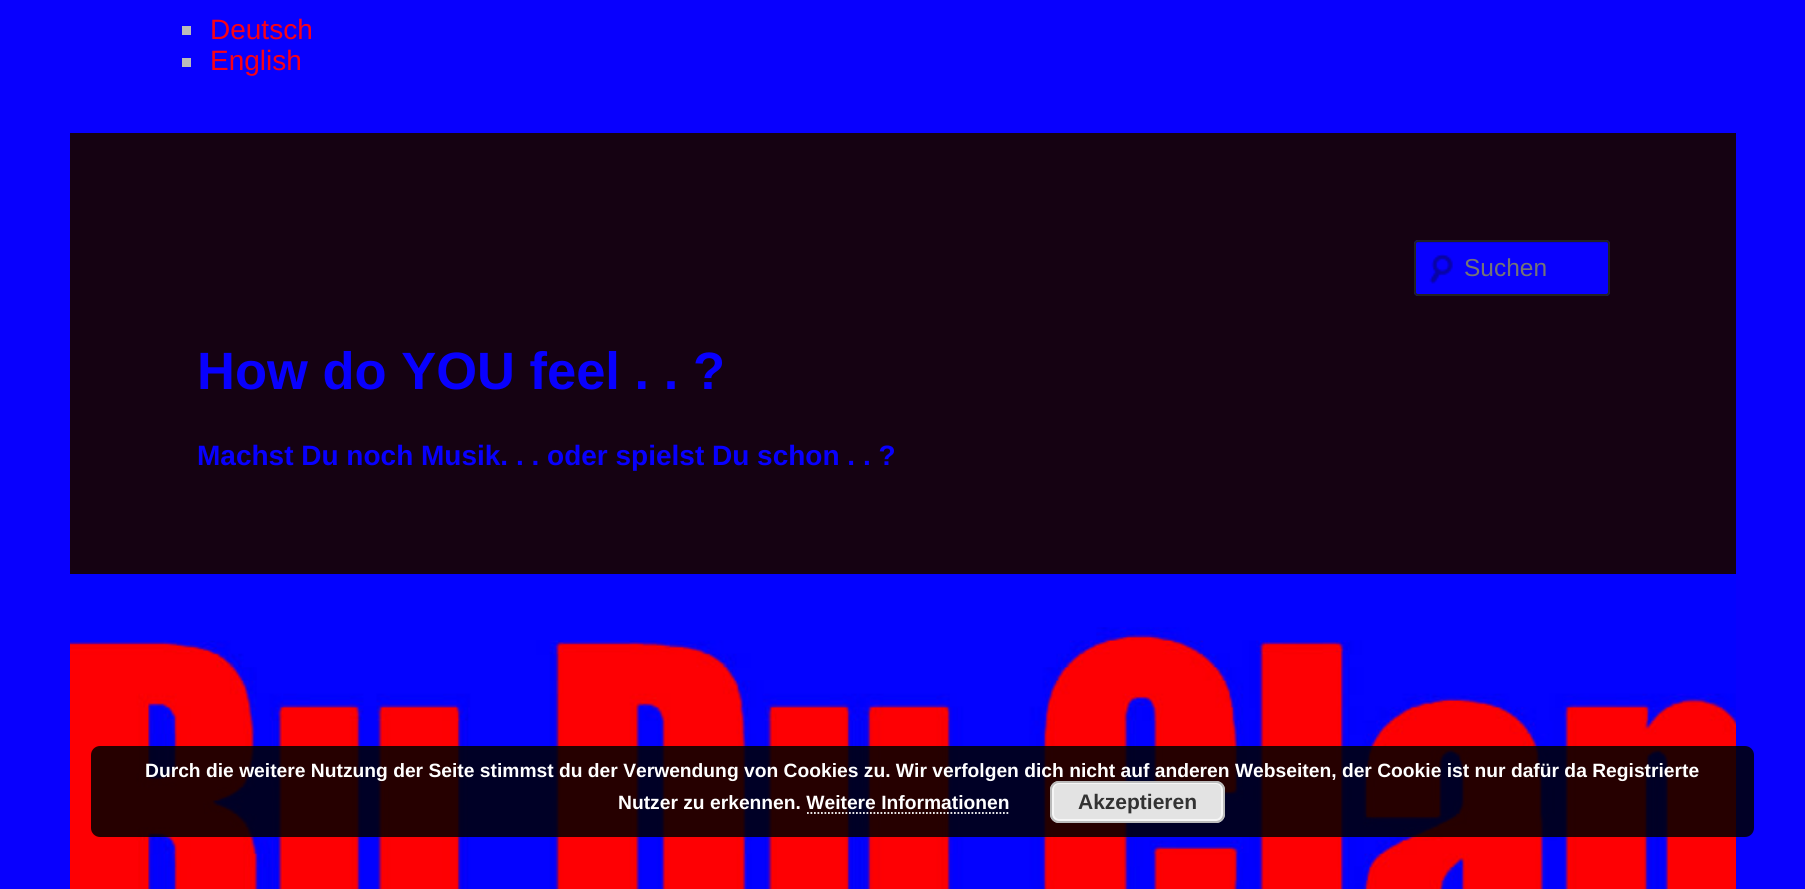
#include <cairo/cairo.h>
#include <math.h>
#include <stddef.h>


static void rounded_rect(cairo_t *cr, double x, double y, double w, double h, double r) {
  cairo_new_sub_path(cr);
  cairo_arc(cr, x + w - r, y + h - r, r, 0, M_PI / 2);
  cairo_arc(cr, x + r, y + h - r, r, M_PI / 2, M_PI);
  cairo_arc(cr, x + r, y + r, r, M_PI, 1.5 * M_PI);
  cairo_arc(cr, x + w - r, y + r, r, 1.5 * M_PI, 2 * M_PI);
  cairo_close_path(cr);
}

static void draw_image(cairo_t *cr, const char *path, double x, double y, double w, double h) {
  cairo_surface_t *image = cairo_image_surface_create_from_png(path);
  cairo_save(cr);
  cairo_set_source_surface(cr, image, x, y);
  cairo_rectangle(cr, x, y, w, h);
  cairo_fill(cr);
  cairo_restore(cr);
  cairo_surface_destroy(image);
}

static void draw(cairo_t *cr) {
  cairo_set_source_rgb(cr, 8 / 255.0, 0, 254 / 255.0);
  cairo_paint(cr);
  cairo_set_source_rgb(cr, 187 / 255.0, 187 / 255.0, 187 / 255.0);
  cairo_rectangle(cr, 182, 26, 9, 9);
  cairo_fill(cr);
  cairo_rectangle(cr, 182, 58, 9, 9);
  cairo_fill(cr);
  cairo_set_source_rgb(cr, 21 / 255.0, 2 / 255.0, 18 / 255.0);
  cairo_rectangle(cr, 70, 133, 1666, 441);
  cairo_fill(cr);
  cairo_set_source_rgb(cr, 8 / 255.0, 0, 254 / 255.0);
  rounded_rect(cr, 1414, 240, 196, 56, 4);
  cairo_fill(cr);
  draw_image(cr, "images/1.png", 1429, 254, 24, 30);
  cairo_set_source_rgb(cr, 7 / 255.0, 0, 229 / 255.0);
  cairo_new_path(cr);
  cairo_move_to(cr, 1418, 243);
  cairo_line_to(cr, 1606, 243);
  cairo_line_to(cr, 1608, 244);
  cairo_line_to(cr, 1608, 245);
  cairo_line_to(cr, 1608, 244);
  cairo_curve_to(cr, 1608, 243, 1607, 242, 1606, 242);
  cairo_line_to(cr, 1418, 242);
  cairo_curve_to(cr, 1417, 242, 1416, 243, 1416, 244);
  cairo_line_to(cr, 1416, 245);
  cairo_curve_to(cr, 1416, 244, 1417, 243, 1418, 243);
  cairo_close_path(cr);
  cairo_fill(cr);
  rounded_rect(cr, 1415, 241, 194, 54, 3);
  cairo_set_source_rgb(cr, 34 / 255.0, 34 / 255.0, 34 / 255.0);
  cairo_stroke(cr);
  draw_image(cr, "images/2.png", 70, 574, 1666, 315);
  cairo_set_source_rgba(cr, 0, 0, 0, 0.85);
  rounded_rect(cr, 91, 746, 1663, 91, 9);
  cairo_fill(cr);
  cairo_new_path(cr);
  cairo_move_to(cr, 807, 813);
  cairo_line_to(cr, 1010, 813);
  cairo_set_source_rgb(cr, 1, 1, 1);
  cairo_set_line_width(cr, 1.8);
  cairo_set_dash(cr, (double[]){1.75, 1.75}, 2, 0);
  cairo_stroke(cr);
  cairo_select_font_face(cr, "Liberation Sans", CAIRO_FONT_SLANT_NORMAL, CAIRO_FONT_WEIGHT_NORMAL);
  cairo_set_font_size(cr, 28);
  cairo_set_source_rgb(cr, 250 / 255.0, 0, 21 / 255.0);
  cairo_move_to(cr, 210, 39);
  cairo_show_text(cr, "Deutsch");
  cairo_move_to(cr, 210, 70);
  cairo_show_text(cr, "English");
  cairo_set_font_size(cr, 24.5);
  cairo_set_source_rgb(cr, 117 / 255.0, 117 / 255.0, 117 / 255.0);
  cairo_move_to(cr, 1464, 276);
  cairo_show_text(cr, "Suchen");
  cairo_select_font_face(cr, "Liberation Sans", CAIRO_FONT_SLANT_NORMAL, CAIRO_FONT_WEIGHT_BOLD);
  cairo_set_font_size(cr, 52.5);
  cairo_set_source_rgb(cr, 8 / 255.0, 0, 254 / 255.0);
  cairo_move_to(cr, 197, 389);
  cairo_show_text(cr, "How do YOU feel . . ?");
  cairo_set_font_size(cr, 28);
  cairo_move_to(cr, 197, 465);
  cairo_show_text(cr, "Machst Du noch Musik. . . oder spielst Du schon . . ?");
  cairo_set_font_size(cr, 19.25);
  cairo_set_source_rgb(cr, 1, 1, 1);
  cairo_move_to(cr, 145, 777);
  cairo_show_text(cr, "Durch die weitere Nutzung der Seite stimmst du der Verwendung von Cookies zu. Wir verfolgen dich nicht auf anderen Webseiten, der Cookie ist nur dafür da Registrierte");
  cairo_move_to(cr, 618, 809);
  cairo_show_text(cr, "Nutzer zu erkennen. Weitere Informationen");
  cairo_set_source_rgb(cr, 227 / 255.0, 227 / 255.0, 227 / 255.0);
  rounded_rect(cr, 1050, 781, 175, 42, 9);
  cairo_fill(cr);
  rounded_rect(cr, 1053, 783, 169, 37, 6);
  cairo_set_source_rgb(cr, 246 / 255.0, 246 / 255.0, 246 / 255.0);
  cairo_set_line_width(cr, 2);
  cairo_set_dash(cr, NULL, 0, 0);
  cairo_stroke(cr);
  rounded_rect(cr, 1051, 782, 173, 40, 8);
  cairo_set_source_rgb(cr, 187 / 255.0, 187 / 255.0, 187 / 255.0);
  cairo_stroke(cr);
  cairo_set_font_size(cr, 21);
  cairo_set_source_rgb(cr, 51 / 255.0, 51 / 255.0, 51 / 255.0);
  cairo_move_to(cr, 1078, 809);
  cairo_show_text(cr, "Akzeptieren");
}

int main(void) {
  cairo_surface_t *surface = cairo_image_surface_create(CAIRO_FORMAT_RGB24, 1805, 889);
  cairo_t *cr = cairo_create(surface);
  cairo_font_options_t *options = cairo_font_options_create();
  cairo_font_options_set_hint_metrics(options, CAIRO_HINT_METRICS_OFF);
  cairo_font_options_set_hint_style(options, CAIRO_HINT_STYLE_NONE);
  cairo_set_font_options(cr, options);
  cairo_set_miter_limit(cr, 4);
  draw(cr);
  cairo_surface_write_to_png(surface, "out.png");
  cairo_font_options_destroy(options);
  cairo_destroy(cr);
  cairo_surface_destroy(surface);
  return 0;
}
